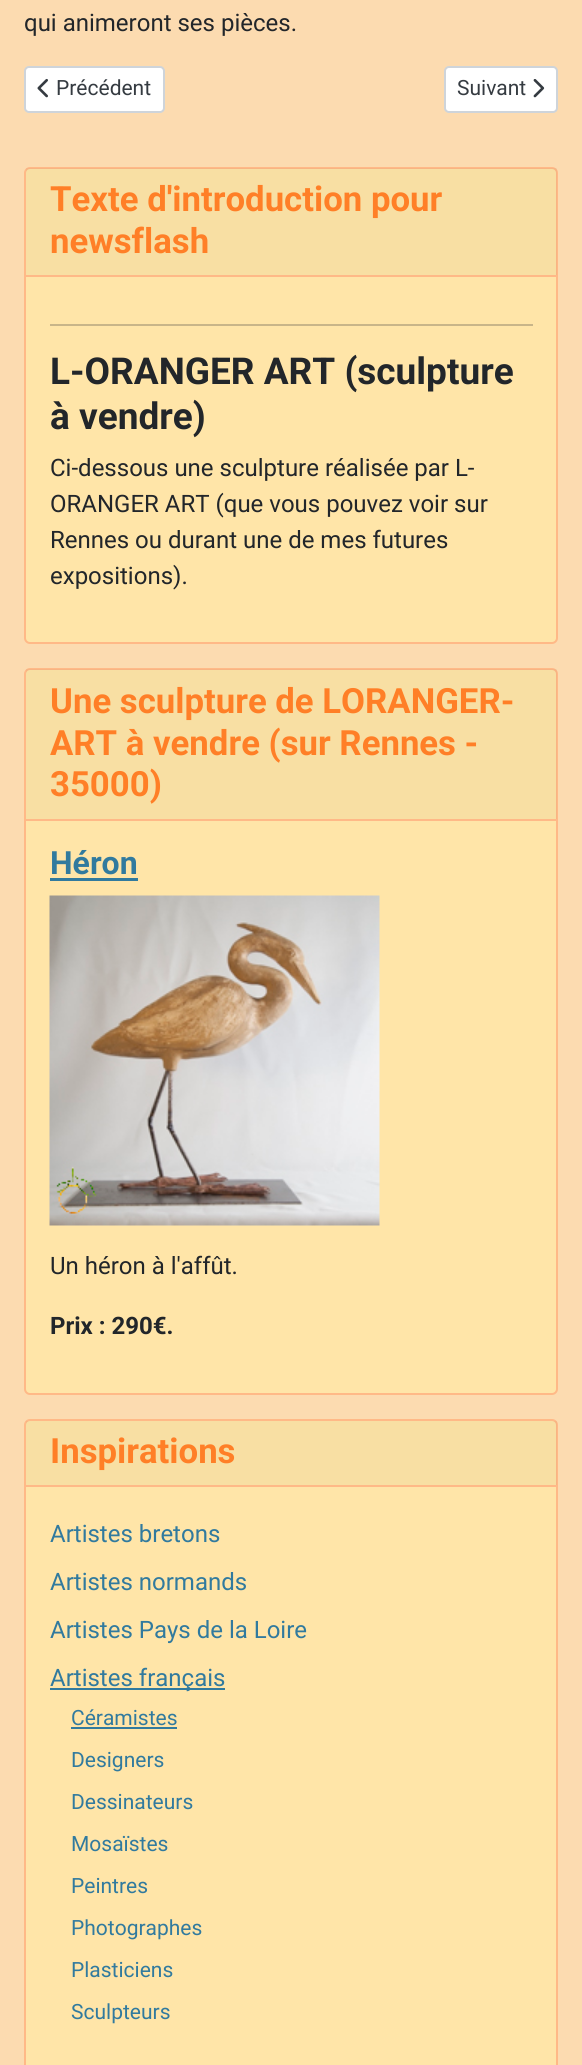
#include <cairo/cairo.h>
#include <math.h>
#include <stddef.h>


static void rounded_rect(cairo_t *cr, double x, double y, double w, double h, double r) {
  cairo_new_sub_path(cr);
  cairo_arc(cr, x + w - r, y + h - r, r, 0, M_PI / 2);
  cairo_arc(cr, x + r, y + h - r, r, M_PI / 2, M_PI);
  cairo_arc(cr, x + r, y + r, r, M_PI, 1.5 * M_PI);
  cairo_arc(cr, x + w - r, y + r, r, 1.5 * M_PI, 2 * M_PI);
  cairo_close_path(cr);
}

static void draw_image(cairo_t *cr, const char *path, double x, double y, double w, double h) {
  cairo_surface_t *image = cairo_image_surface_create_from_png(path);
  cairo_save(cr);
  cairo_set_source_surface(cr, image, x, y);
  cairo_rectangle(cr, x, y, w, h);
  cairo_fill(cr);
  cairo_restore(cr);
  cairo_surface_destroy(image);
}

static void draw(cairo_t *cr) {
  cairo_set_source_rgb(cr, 252 / 255.0, 219 / 255.0, 176 / 255.0);
  cairo_paint(cr);
  cairo_set_source_rgb(cr, 1, 1, 1);
  rounded_rect(cr, 25, 67, 139, 45, 4);
  cairo_fill_preserve(cr);
  cairo_set_source_rgb(cr, 206 / 255.0, 212 / 255.0, 218 / 255.0);
  cairo_stroke(cr);
  draw_image(cr, "images/1.png", 37, 78, 11, 20);
  cairo_set_source_rgb(cr, 1, 1, 1);
  rounded_rect(cr, 445, 67, 112, 45, 4);
  cairo_fill_preserve(cr);
  cairo_set_source_rgb(cr, 206 / 255.0, 212 / 255.0, 218 / 255.0);
  cairo_stroke(cr);
  draw_image(cr, "images/2.png", 533, 79, 12, 19);
  cairo_set_source_rgb(cr, 1, 229 / 255.0, 168 / 255.0);
  rounded_rect(cr, 25, 168, 532, 475, 5);
  cairo_fill_preserve(cr);
  cairo_set_source_rgb(cr, 1, 185 / 255.0, 135 / 255.0);
  cairo_stroke(cr);
  cairo_set_source_rgba(cr, 0, 0, 0, 0.03);
  cairo_rectangle(cr, 26, 168, 531, 107);
  cairo_fill(cr);
  cairo_set_source_rgb(cr, 1, 185 / 255.0, 135 / 255.0);
  cairo_rectangle(cr, 26, 275, 531, 2);
  cairo_fill(cr);
  cairo_set_source_rgb(cr, 200 / 255.0, 181 / 255.0, 137 / 255.0);
  cairo_rectangle(cr, 50, 324, 483, 2);
  cairo_fill(cr);
  cairo_set_source_rgb(cr, 1, 229 / 255.0, 168 / 255.0);
  rounded_rect(cr, 25, 669, 532, 725, 5);
  cairo_fill_preserve(cr);
  cairo_set_source_rgb(cr, 1, 185 / 255.0, 135 / 255.0);
  cairo_stroke(cr);
  cairo_set_source_rgba(cr, 0, 0, 0, 0.03);
  cairo_rectangle(cr, 26, 669, 531, 150);
  cairo_fill(cr);
  cairo_set_source_rgb(cr, 1, 185 / 255.0, 135 / 255.0);
  cairo_rectangle(cr, 26, 819, 531, 2);
  cairo_fill(cr);
  cairo_set_source_rgb(cr, 49 / 255.0, 122 / 255.0, 158 / 255.0);
  cairo_rectangle(cr, 50, 878, 88, 3);
  cairo_fill(cr);
  draw_image(cr, "images/3.png", 49, 895, 331, 331);
  cairo_set_source_rgb(cr, 1, 229 / 255.0, 168 / 255.0);
  rounded_rect(cr, 25, 1420, 532, 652, 5);
  cairo_fill_preserve(cr);
  cairo_set_source_rgb(cr, 1, 185 / 255.0, 135 / 255.0);
  cairo_stroke(cr);
  cairo_set_source_rgba(cr, 0, 0, 0, 0.03);
  cairo_rectangle(cr, 26, 1421, 531, 64);
  cairo_fill(cr);
  cairo_set_source_rgb(cr, 1, 185 / 255.0, 135 / 255.0);
  cairo_rectangle(cr, 26, 1485, 531, 2);
  cairo_fill(cr);
  cairo_set_source_rgb(cr, 49 / 255.0, 122 / 255.0, 158 / 255.0);
  cairo_rectangle(cr, 50, 1688, 175, 2);
  cairo_fill(cr);
  cairo_rectangle(cr, 71, 1727, 106, 2);
  cairo_fill(cr);
  cairo_select_font_face(cr, "Roboto", CAIRO_FONT_SLANT_NORMAL, CAIRO_FONT_WEIGHT_NORMAL);
  cairo_set_font_size(cr, 24);
  cairo_set_source_rgb(cr, 34 / 255.0, 38 / 255.0, 42 / 255.0);
  cairo_move_to(cr, 24, 31);
  cairo_show_text(cr, "qui animeront ses pièces.");
  cairo_set_font_size(cr, 21);
  cairo_set_source_rgb(cr, 53 / 255.0, 59 / 255.0, 65 / 255.0);
  cairo_move_to(cr, 56, 95);
  cairo_show_text(cr, "Précédent");
  cairo_move_to(cr, 457, 95);
  cairo_show_text(cr, "Suivant");
  cairo_select_font_face(cr, "Roboto", CAIRO_FONT_SLANT_NORMAL, CAIRO_FONT_WEIGHT_BOLD);
  cairo_set_font_size(cr, 34.75);
  cairo_set_source_rgb(cr, 1, 127 / 255.0, 39 / 255.0);
  cairo_move_to(cr, 50, 211);
  cairo_show_text(cr, "Texte d'introduction pour");
  cairo_move_to(cr, 50, 253);
  cairo_show_text(cr, "newsflash");
  cairo_set_font_size(cr, 37);
  cairo_set_source_rgb(cr, 34 / 255.0, 38 / 255.0, 42 / 255.0);
  cairo_move_to(cr, 50, 384);
  cairo_show_text(cr, "L-ORANGER ART (sculpture");
  cairo_move_to(cr, 50, 429);
  cairo_show_text(cr, "à vendre)");
  cairo_select_font_face(cr, "Roboto", CAIRO_FONT_SLANT_NORMAL, CAIRO_FONT_WEIGHT_NORMAL);
  cairo_set_font_size(cr, 24);
  cairo_move_to(cr, 50, 476);
  cairo_show_text(cr, "Ci-dessous une sculpture réalisée par L-");
  cairo_move_to(cr, 50, 512);
  cairo_show_text(cr, "ORANGER ART (que vous pouvez voir sur");
  cairo_move_to(cr, 50, 548);
  cairo_show_text(cr, "Rennes ou durant une de mes futures");
  cairo_move_to(cr, 50, 584);
  cairo_show_text(cr, "expositions).");
  cairo_select_font_face(cr, "Roboto", CAIRO_FONT_SLANT_NORMAL, CAIRO_FONT_WEIGHT_BOLD);
  cairo_set_font_size(cr, 34.75);
  cairo_set_source_rgb(cr, 1, 127 / 255.0, 39 / 255.0);
  cairo_move_to(cr, 50, 713);
  cairo_show_text(cr, "Une sculpture de LORANGER-");
  cairo_move_to(cr, 50, 755);
  cairo_show_text(cr, "ART à vendre (sur Rennes -");
  cairo_move_to(cr, 50, 796);
  cairo_show_text(cr, "35000)");
  cairo_set_font_size(cr, 32);
  cairo_set_source_rgb(cr, 49 / 255.0, 122 / 255.0, 158 / 255.0);
  cairo_move_to(cr, 50, 874);
  cairo_show_text(cr, "Héron");
  cairo_select_font_face(cr, "Roboto", CAIRO_FONT_SLANT_NORMAL, CAIRO_FONT_WEIGHT_NORMAL);
  cairo_set_font_size(cr, 24);
  cairo_set_source_rgb(cr, 34 / 255.0, 38 / 255.0, 42 / 255.0);
  cairo_move_to(cr, 50, 1274);
  cairo_show_text(cr, "Un héron à l'affût.");
  cairo_select_font_face(cr, "Roboto", CAIRO_FONT_SLANT_NORMAL, CAIRO_FONT_WEIGHT_BOLD);
  cairo_move_to(cr, 50, 1334);
  cairo_show_text(cr, "Prix : 290€.");
  cairo_set_font_size(cr, 34.75);
  cairo_set_source_rgb(cr, 1, 127 / 255.0, 39 / 255.0);
  cairo_move_to(cr, 50, 1463);
  cairo_show_text(cr, "Inspirations");
  cairo_select_font_face(cr, "Roboto", CAIRO_FONT_SLANT_NORMAL, CAIRO_FONT_WEIGHT_NORMAL);
  cairo_set_font_size(cr, 24);
  cairo_set_source_rgb(cr, 49 / 255.0, 122 / 255.0, 158 / 255.0);
  cairo_move_to(cr, 50, 1542);
  cairo_show_text(cr, "Artistes bretons");
  cairo_move_to(cr, 50, 1590);
  cairo_show_text(cr, "Artistes normands");
  cairo_move_to(cr, 50, 1638);
  cairo_show_text(cr, "Artistes Pays de la Loire");
  cairo_move_to(cr, 50, 1686);
  cairo_show_text(cr, "Artistes français");
  cairo_set_font_size(cr, 21);
  cairo_move_to(cr, 71, 1725);
  cairo_show_text(cr, "Céramistes");
  cairo_move_to(cr, 71, 1767);
  cairo_show_text(cr, "Designers");
  cairo_move_to(cr, 71, 1809);
  cairo_show_text(cr, "Dessinateurs");
  cairo_move_to(cr, 71, 1851);
  cairo_show_text(cr, "Mosaïstes");
  cairo_move_to(cr, 71, 1893);
  cairo_show_text(cr, "Peintres");
  cairo_move_to(cr, 71, 1935);
  cairo_show_text(cr, "Photographes");
  cairo_move_to(cr, 71, 1977);
  cairo_show_text(cr, "Plasticiens");
  cairo_move_to(cr, 71, 2019);
  cairo_show_text(cr, "Sculpteurs");
}

int main(void) {
  cairo_surface_t *surface = cairo_image_surface_create(CAIRO_FORMAT_RGB24, 582, 2065);
  cairo_t *cr = cairo_create(surface);
  cairo_font_options_t *options = cairo_font_options_create();
  cairo_font_options_set_hint_metrics(options, CAIRO_HINT_METRICS_OFF);
  cairo_font_options_set_hint_style(options, CAIRO_HINT_STYLE_NONE);
  cairo_set_font_options(cr, options);
  cairo_set_miter_limit(cr, 4);
  draw(cr);
  cairo_surface_write_to_png(surface, "out.png");
  cairo_font_options_destroy(options);
  cairo_destroy(cr);
  cairo_surface_destroy(surface);
  return 0;
}
